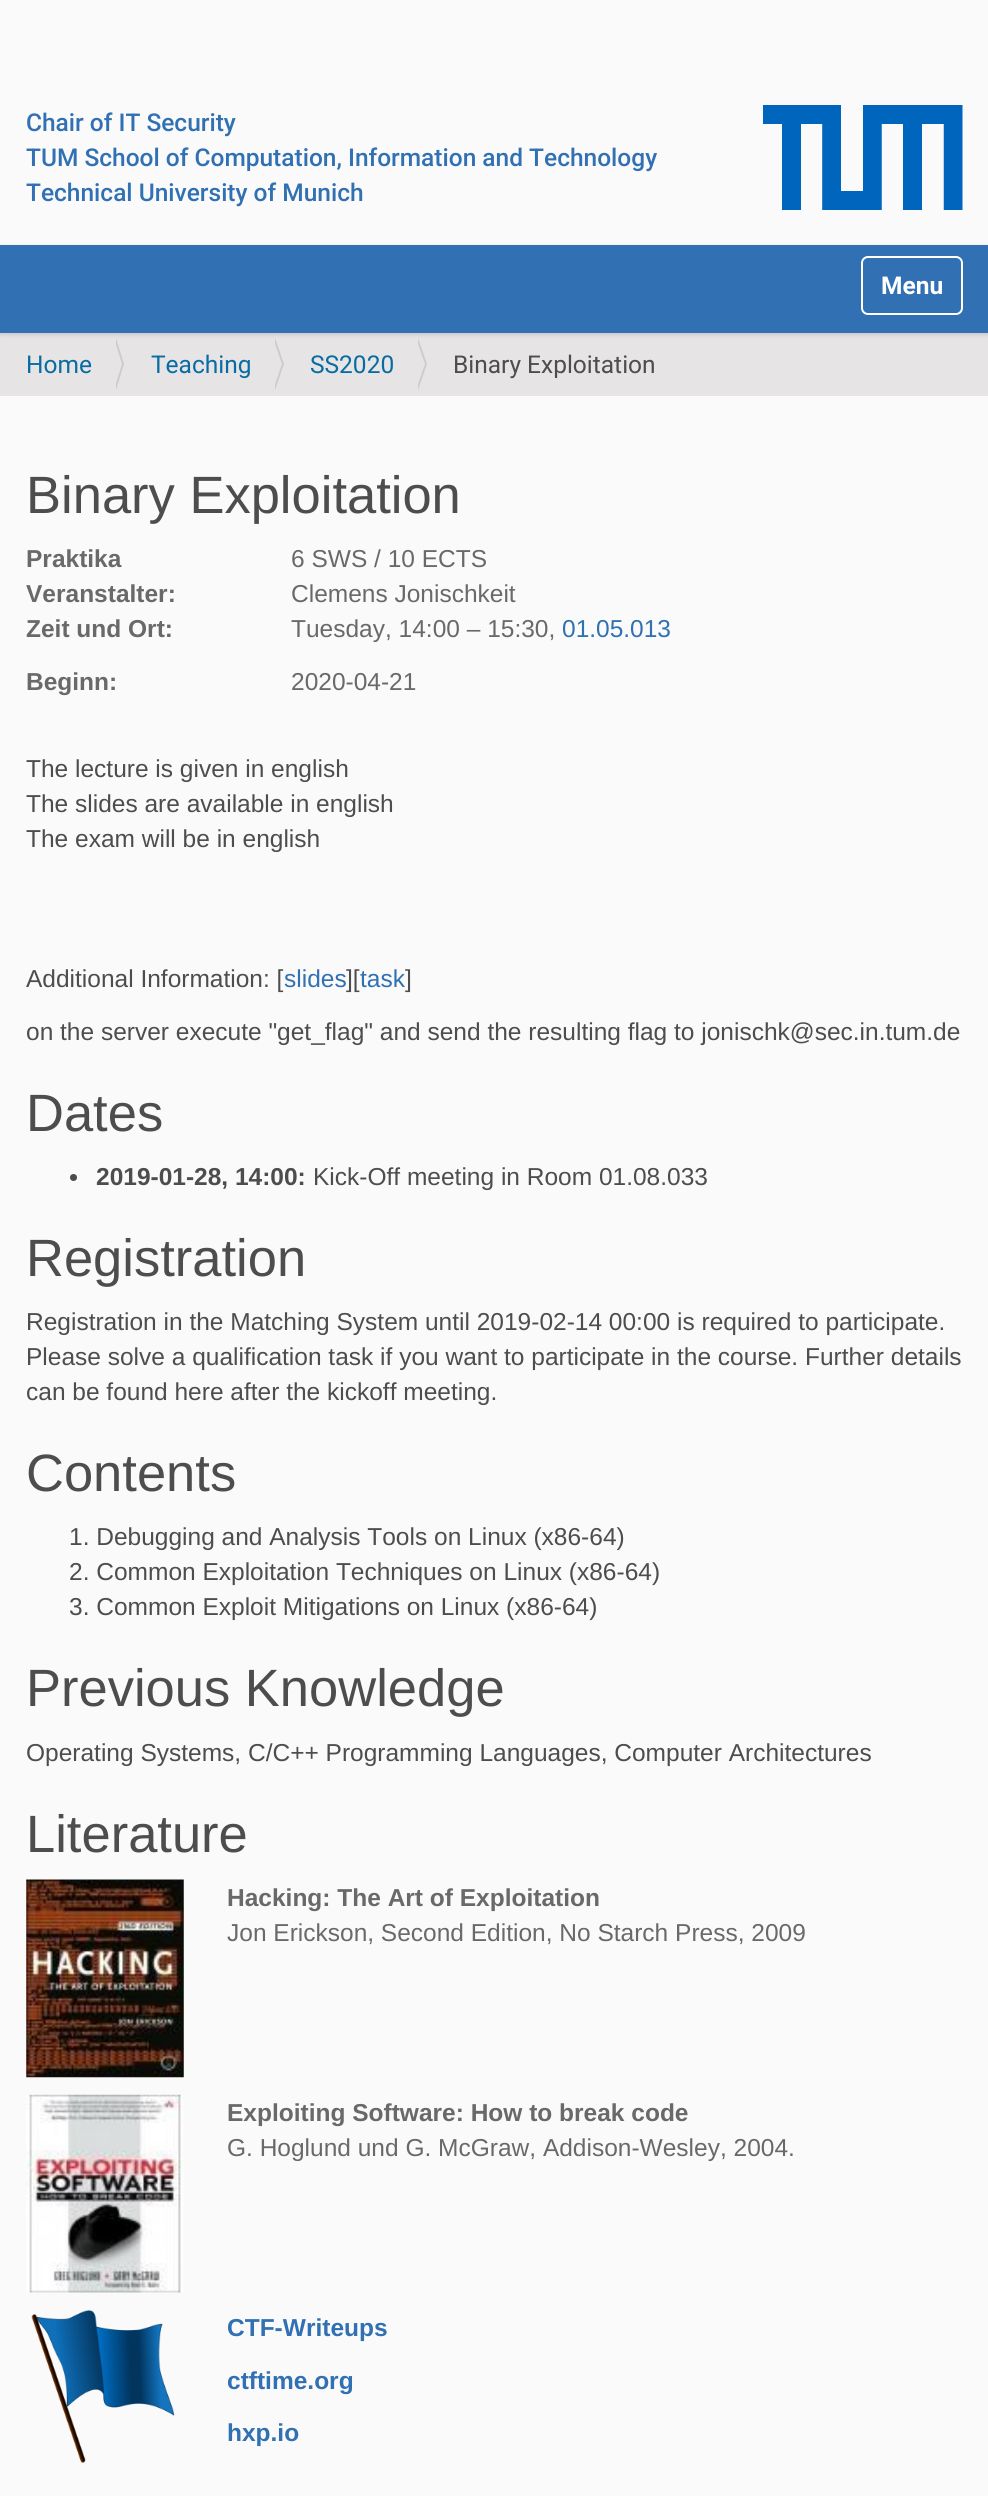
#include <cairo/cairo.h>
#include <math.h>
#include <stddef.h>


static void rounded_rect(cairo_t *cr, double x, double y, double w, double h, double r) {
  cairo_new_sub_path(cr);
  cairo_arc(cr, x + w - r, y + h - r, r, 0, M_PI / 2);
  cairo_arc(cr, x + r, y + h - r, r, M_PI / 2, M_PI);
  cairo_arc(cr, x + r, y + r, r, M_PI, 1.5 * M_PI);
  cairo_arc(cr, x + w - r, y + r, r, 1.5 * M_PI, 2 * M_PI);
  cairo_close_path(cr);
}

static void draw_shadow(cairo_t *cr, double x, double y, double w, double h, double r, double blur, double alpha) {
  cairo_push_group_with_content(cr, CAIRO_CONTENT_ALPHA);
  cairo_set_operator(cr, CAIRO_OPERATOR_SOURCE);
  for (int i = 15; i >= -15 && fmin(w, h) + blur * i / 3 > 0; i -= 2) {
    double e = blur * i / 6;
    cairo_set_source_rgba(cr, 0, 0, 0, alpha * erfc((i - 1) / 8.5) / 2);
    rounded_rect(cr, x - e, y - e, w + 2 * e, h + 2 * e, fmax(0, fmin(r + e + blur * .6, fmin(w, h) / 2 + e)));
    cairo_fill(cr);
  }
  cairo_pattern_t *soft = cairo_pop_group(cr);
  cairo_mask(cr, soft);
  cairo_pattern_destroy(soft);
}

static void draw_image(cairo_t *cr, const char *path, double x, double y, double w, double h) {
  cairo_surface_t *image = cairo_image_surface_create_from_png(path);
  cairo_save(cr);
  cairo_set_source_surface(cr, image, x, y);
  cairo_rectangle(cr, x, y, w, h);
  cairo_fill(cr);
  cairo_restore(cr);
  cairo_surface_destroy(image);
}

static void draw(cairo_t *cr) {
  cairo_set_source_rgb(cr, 250 / 255.0, 250 / 255.0, 250 / 255.0);
  cairo_paint(cr);
  draw_image(cr, "images/1.png", 763, 105, 200, 105);
  cairo_set_source_rgb(cr, 230 / 255.0, 228 / 255.0, 228 / 255.0);
  cairo_rectangle(cr, 0, 333, 988, 63);
  cairo_fill(cr);
  cairo_set_source_rgb(cr, 0, 0, 0);
  draw_shadow(cr, 0, 247, 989, 87, 0, 2.5, 0.17);
  cairo_set_source_rgb(cr, 48 / 255.0, 112 / 255.0, 179 / 255.0);
  cairo_rectangle(cr, 0, 245, 988, 88);
  cairo_fill(cr);
  rounded_rect(cr, 862, 257, 100, 57, 6);
  cairo_set_source_rgb(cr, 1, 1, 1);
  cairo_stroke(cr);
  cairo_set_source_rgb(cr, 204 / 255.0, 204 / 255.0, 204 / 255.0);
  cairo_new_path(cr);
  cairo_move_to(cr, 116, 390);
  cairo_line_to(cr, 116, 338);
  cairo_line_to(cr, 124, 364);
  cairo_close_path(cr);
  cairo_fill(cr);
  cairo_set_source_rgb(cr, 230 / 255.0, 228 / 255.0, 228 / 255.0);
  cairo_new_path(cr);
  cairo_move_to(cr, 114, 390);
  cairo_line_to(cr, 114, 338);
  cairo_line_to(cr, 122, 364);
  cairo_close_path(cr);
  cairo_fill(cr);
  cairo_set_source_rgb(cr, 204 / 255.0, 204 / 255.0, 204 / 255.0);
  cairo_new_path(cr);
  cairo_move_to(cr, 275, 390);
  cairo_line_to(cr, 275, 338);
  cairo_line_to(cr, 284, 364);
  cairo_close_path(cr);
  cairo_fill(cr);
  cairo_set_source_rgb(cr, 230 / 255.0, 228 / 255.0, 228 / 255.0);
  cairo_new_path(cr);
  cairo_move_to(cr, 273, 390);
  cairo_line_to(cr, 273, 338);
  cairo_line_to(cr, 282, 364);
  cairo_close_path(cr);
  cairo_fill(cr);
  cairo_set_source_rgb(cr, 204 / 255.0, 204 / 255.0, 204 / 255.0);
  cairo_new_path(cr);
  cairo_move_to(cr, 418, 390);
  cairo_line_to(cr, 418, 338);
  cairo_line_to(cr, 427, 364);
  cairo_close_path(cr);
  cairo_fill(cr);
  cairo_set_source_rgb(cr, 230 / 255.0, 228 / 255.0, 228 / 255.0);
  cairo_new_path(cr);
  cairo_move_to(cr, 416, 390);
  cairo_line_to(cr, 416, 338);
  cairo_line_to(cr, 425, 364);
  cairo_close_path(cr);
  cairo_fill(cr);
  cairo_set_source_rgb(cr, 77 / 255.0, 77 / 255.0, 77 / 255.0);
  cairo_arc(cr, 73.5, 1177.5, 3.5, 0, 2 * M_PI);
  cairo_fill(cr);
  draw_image(cr, "images/2.png", 26, 1879, 158, 199);
  draw_image(cr, "images/3.png", 26, 2094, 158, 199);
  draw_image(cr, "images/4.png", 31, 2310, 144, 153);
  cairo_select_font_face(cr, "Roboto Medium", CAIRO_FONT_SLANT_NORMAL, CAIRO_FONT_WEIGHT_NORMAL);
  cairo_set_font_size(cr, 24.5);
  cairo_set_source_rgb(cr, 48 / 255.0, 112 / 255.0, 179 / 255.0);
  cairo_move_to(cr, 26, 131);
  cairo_show_text(cr, "Chair of IT Security");
  cairo_move_to(cr, 26, 166);
  cairo_show_text(cr, "TUM School of Computation, Information and Technology");
  cairo_move_to(cr, 26, 201);
  cairo_show_text(cr, "Technical University of Munich");
  cairo_select_font_face(cr, "Roboto", CAIRO_FONT_SLANT_NORMAL, CAIRO_FONT_WEIGHT_BOLD);
  cairo_set_source_rgb(cr, 1, 1, 1);
  cairo_move_to(cr, 881, 294);
  cairo_show_text(cr, "Menu");
  cairo_select_font_face(cr, "Roboto", CAIRO_FONT_SLANT_NORMAL, CAIRO_FONT_WEIGHT_NORMAL);
  cairo_set_source_rgb(cr, 8 / 255.0, 108 / 255.0, 163 / 255.0);
  cairo_move_to(cr, 26, 373);
  cairo_show_text(cr, "Home");
  cairo_move_to(cr, 151, 373);
  cairo_show_text(cr, "Teaching");
  cairo_move_to(cr, 310, 373);
  cairo_show_text(cr, "SS2020");
  cairo_set_source_rgb(cr, 77 / 255.0, 77 / 255.0, 77 / 255.0);
  cairo_move_to(cr, 453, 373);
  cairo_show_text(cr, "Binary Exploitation");
  cairo_select_font_face(cr, "Liberation Sans", CAIRO_FONT_SLANT_NORMAL, CAIRO_FONT_WEIGHT_NORMAL);
  cairo_set_font_size(cr, 52.5);
  cairo_move_to(cr, 26, 513);
  cairo_show_text(cr, "Binary Exploitation");
  cairo_select_font_face(cr, "Liberation Sans", CAIRO_FONT_SLANT_NORMAL, CAIRO_FONT_WEIGHT_BOLD);
  cairo_set_font_size(cr, 24.5);
  cairo_set_source_rgb(cr, 105 / 255.0, 105 / 255.0, 105 / 255.0);
  cairo_move_to(cr, 26, 567);
  cairo_show_text(cr, "Praktika");
  cairo_select_font_face(cr, "Liberation Sans", CAIRO_FONT_SLANT_NORMAL, CAIRO_FONT_WEIGHT_NORMAL);
  cairo_move_to(cr, 291, 567);
  cairo_show_text(cr, "6 SWS / 10 ECTS");
  cairo_select_font_face(cr, "Liberation Sans", CAIRO_FONT_SLANT_NORMAL, CAIRO_FONT_WEIGHT_BOLD);
  cairo_move_to(cr, 26, 602);
  cairo_show_text(cr, "Veranstalter:");
  cairo_select_font_face(cr, "Liberation Sans", CAIRO_FONT_SLANT_NORMAL, CAIRO_FONT_WEIGHT_NORMAL);
  cairo_move_to(cr, 291, 602);
  cairo_show_text(cr, "Clemens Jonischkeit");
  cairo_select_font_face(cr, "Liberation Sans", CAIRO_FONT_SLANT_NORMAL, CAIRO_FONT_WEIGHT_BOLD);
  cairo_move_to(cr, 26, 637);
  cairo_show_text(cr, "Zeit und Ort:");
  cairo_select_font_face(cr, "Liberation Sans", CAIRO_FONT_SLANT_NORMAL, CAIRO_FONT_WEIGHT_NORMAL);
  cairo_move_to(cr, 291, 637);
  cairo_show_text(cr, "Tuesday, 14:00 – 15:30,");
  cairo_set_source_rgb(cr, 48 / 255.0, 112 / 255.0, 179 / 255.0);
  cairo_move_to(cr, 562, 637);
  cairo_show_text(cr, "01.05.013");
  cairo_select_font_face(cr, "Liberation Sans", CAIRO_FONT_SLANT_NORMAL, CAIRO_FONT_WEIGHT_BOLD);
  cairo_set_source_rgb(cr, 105 / 255.0, 105 / 255.0, 105 / 255.0);
  cairo_move_to(cr, 26, 690);
  cairo_show_text(cr, "Beginn:");
  cairo_select_font_face(cr, "Liberation Sans", CAIRO_FONT_SLANT_NORMAL, CAIRO_FONT_WEIGHT_NORMAL);
  cairo_move_to(cr, 291, 690);
  cairo_show_text(cr, "2020-04-21");
  cairo_set_source_rgb(cr, 77 / 255.0, 77 / 255.0, 77 / 255.0);
  cairo_move_to(cr, 26, 777);
  cairo_show_text(cr, "The lecture is given in english");
  cairo_move_to(cr, 26, 812);
  cairo_show_text(cr, "The slides are available in english");
  cairo_move_to(cr, 26, 847);
  cairo_show_text(cr, "The exam will be in english");
  cairo_move_to(cr, 26, 987);
  cairo_show_text(cr, "Additional Information: [");
  cairo_set_source_rgb(cr, 48 / 255.0, 112 / 255.0, 179 / 255.0);
  cairo_move_to(cr, 284, 987);
  cairo_show_text(cr, "slides");
  cairo_set_source_rgb(cr, 77 / 255.0, 77 / 255.0, 77 / 255.0);
  cairo_move_to(cr, 346, 987);
  cairo_show_text(cr, "][");
  cairo_set_source_rgb(cr, 48 / 255.0, 112 / 255.0, 179 / 255.0);
  cairo_move_to(cr, 360, 987);
  cairo_show_text(cr, "task");
  cairo_set_source_rgb(cr, 77 / 255.0, 77 / 255.0, 77 / 255.0);
  cairo_move_to(cr, 405, 987);
  cairo_show_text(cr, "]");
  cairo_move_to(cr, 26, 1040);
  cairo_show_text(cr, "on the server execute \"get_flag\" and send the resulting flag to jonischk@sec.in.tum.de");
  cairo_set_font_size(cr, 52.5);
  cairo_move_to(cr, 26, 1131);
  cairo_show_text(cr, "Dates");
  cairo_select_font_face(cr, "Liberation Sans", CAIRO_FONT_SLANT_NORMAL, CAIRO_FONT_WEIGHT_BOLD);
  cairo_set_font_size(cr, 24.5);
  cairo_move_to(cr, 96, 1185);
  cairo_show_text(cr, "2019-01-28, 14:00:");
  cairo_select_font_face(cr, "Liberation Sans", CAIRO_FONT_SLANT_NORMAL, CAIRO_FONT_WEIGHT_NORMAL);
  cairo_move_to(cr, 313, 1185);
  cairo_show_text(cr, "Kick-Off meeting in Room 01.08.033");
  cairo_set_font_size(cr, 52.5);
  cairo_move_to(cr, 26, 1276);
  cairo_show_text(cr, "Registration");
  cairo_set_font_size(cr, 24.5);
  cairo_move_to(cr, 26, 1330);
  cairo_show_text(cr, "Registration in the Matching System until 2019-02-14 00:00 is required to participate.");
  cairo_move_to(cr, 26, 1365);
  cairo_show_text(cr, "Please solve a qualification task if you want to participate in the course. Further details");
  cairo_move_to(cr, 26, 1400);
  cairo_show_text(cr, "can be found here after the kickoff meeting.");
  cairo_set_font_size(cr, 52.5);
  cairo_move_to(cr, 26, 1491);
  cairo_show_text(cr, "Contents");
  cairo_set_font_size(cr, 24.5);
  cairo_move_to(cr, 69, 1545);
  cairo_show_text(cr, "1. Debugging and Analysis Tools on Linux (x86-64)");
  cairo_move_to(cr, 69, 1580);
  cairo_show_text(cr, "2. Common Exploitation Techniques on Linux (x86-64)");
  cairo_move_to(cr, 69, 1615);
  cairo_show_text(cr, "3. Common Exploit Mitigations on Linux (x86-64)");
  cairo_set_font_size(cr, 52.5);
  cairo_move_to(cr, 26, 1706);
  cairo_show_text(cr, "Previous Knowledge");
  cairo_set_font_size(cr, 24.5);
  cairo_move_to(cr, 26, 1761);
  cairo_show_text(cr, "Operating Systems, C/C++ Programming Languages, Computer Architectures");
  cairo_set_font_size(cr, 52.5);
  cairo_move_to(cr, 26, 1852);
  cairo_show_text(cr, "Literature");
  cairo_select_font_face(cr, "Liberation Sans", CAIRO_FONT_SLANT_NORMAL, CAIRO_FONT_WEIGHT_BOLD);
  cairo_set_font_size(cr, 24.5);
  cairo_set_source_rgb(cr, 105 / 255.0, 105 / 255.0, 105 / 255.0);
  cairo_move_to(cr, 227, 1906);
  cairo_show_text(cr, "Hacking: The Art of Exploitation");
  cairo_select_font_face(cr, "Liberation Sans", CAIRO_FONT_SLANT_NORMAL, CAIRO_FONT_WEIGHT_NORMAL);
  cairo_move_to(cr, 227, 1941);
  cairo_show_text(cr, "Jon Erickson, Second Edition, No Starch Press, 2009");
  cairo_select_font_face(cr, "Liberation Sans", CAIRO_FONT_SLANT_NORMAL, CAIRO_FONT_WEIGHT_BOLD);
  cairo_move_to(cr, 227, 2121);
  cairo_show_text(cr, "Exploiting Software: How to break code");
  cairo_select_font_face(cr, "Liberation Sans", CAIRO_FONT_SLANT_NORMAL, CAIRO_FONT_WEIGHT_NORMAL);
  cairo_move_to(cr, 227, 2156);
  cairo_show_text(cr, "G. Hoglund und G. McGraw, Addison-Wesley, 2004.");
  cairo_select_font_face(cr, "Liberation Sans", CAIRO_FONT_SLANT_NORMAL, CAIRO_FONT_WEIGHT_BOLD);
  cairo_set_source_rgb(cr, 48 / 255.0, 112 / 255.0, 179 / 255.0);
  cairo_move_to(cr, 227, 2336);
  cairo_show_text(cr, "CTF-Writeups");
  cairo_move_to(cr, 227, 2389);
  cairo_show_text(cr, "ctftime.org");
  cairo_move_to(cr, 227, 2441);
  cairo_show_text(cr, "hxp.io");
}

int main(void) {
  cairo_surface_t *surface = cairo_image_surface_create(CAIRO_FORMAT_RGB24, 988, 2496);
  cairo_t *cr = cairo_create(surface);
  cairo_font_options_t *options = cairo_font_options_create();
  cairo_font_options_set_hint_metrics(options, CAIRO_HINT_METRICS_OFF);
  cairo_font_options_set_hint_style(options, CAIRO_HINT_STYLE_NONE);
  cairo_set_font_options(cr, options);
  cairo_set_miter_limit(cr, 4);
  draw(cr);
  cairo_surface_write_to_png(surface, "out.png");
  cairo_font_options_destroy(options);
  cairo_destroy(cr);
  cairo_surface_destroy(surface);
  return 0;
}
